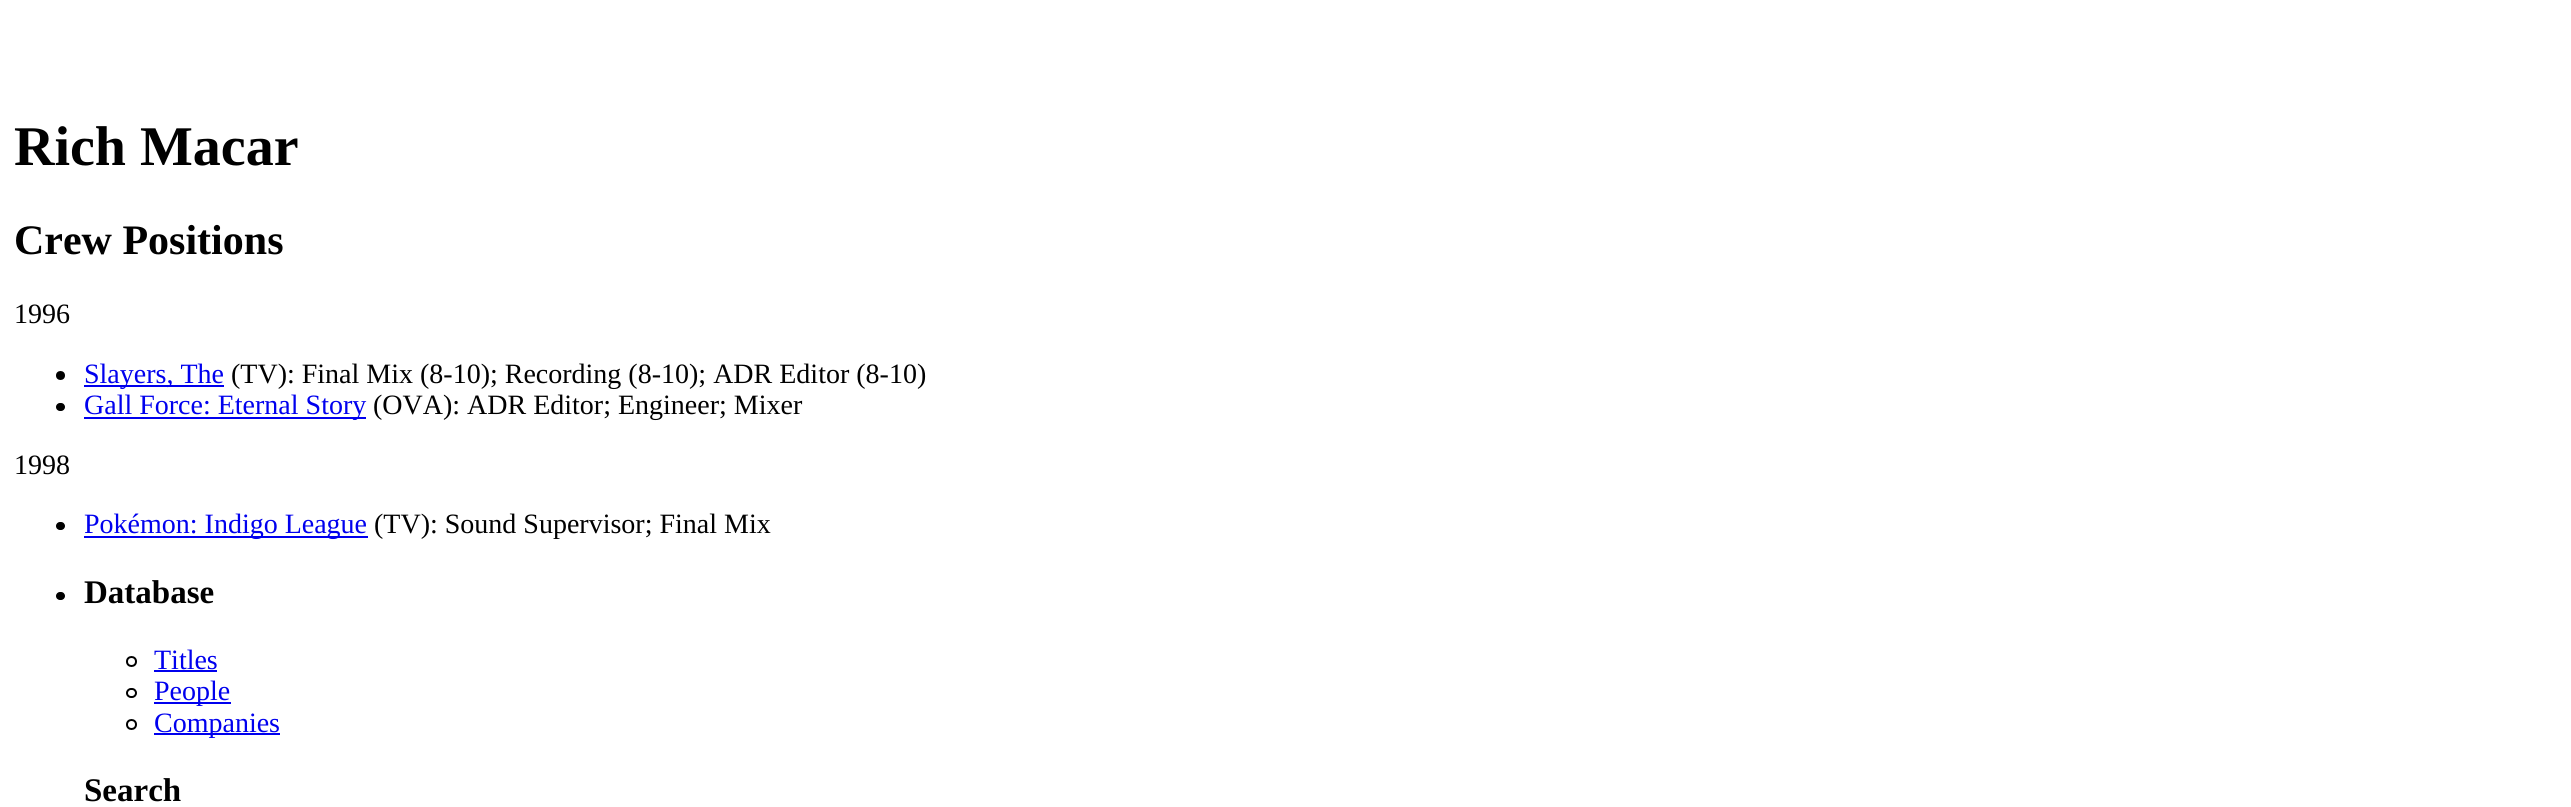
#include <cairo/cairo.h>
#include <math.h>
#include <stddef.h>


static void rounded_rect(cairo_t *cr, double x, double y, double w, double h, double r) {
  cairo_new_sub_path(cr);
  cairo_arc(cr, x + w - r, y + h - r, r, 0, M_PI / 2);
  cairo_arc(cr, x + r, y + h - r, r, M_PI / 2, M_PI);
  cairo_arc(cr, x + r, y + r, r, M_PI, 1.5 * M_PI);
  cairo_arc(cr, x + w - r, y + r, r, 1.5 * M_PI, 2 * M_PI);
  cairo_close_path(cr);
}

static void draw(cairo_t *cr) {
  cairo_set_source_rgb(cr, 1, 1, 1);
  cairo_paint(cr);
  cairo_set_source_rgb(cr, 0, 0, 0);
  cairo_arc(cr, 60.5, 375.5, 4.5, 0, 2 * M_PI);
  cairo_fill(cr);
  cairo_set_source_rgb(cr, 0, 0, 238 / 255.0);
  cairo_rectangle(cr, 84, 385, 140, 2);
  cairo_fill(cr);
  cairo_set_source_rgb(cr, 0, 0, 0);
  rounded_rect(cr, 56, 403, 9, 8, 4);
  cairo_fill(cr);
  cairo_set_source_rgb(cr, 0, 0, 238 / 255.0);
  cairo_rectangle(cr, 84, 417, 282, 2);
  cairo_fill(cr);
  cairo_set_source_rgb(cr, 0, 0, 0);
  rounded_rect(cr, 56, 522, 9, 8, 4);
  cairo_fill(cr);
  cairo_set_source_rgb(cr, 0, 0, 238 / 255.0);
  cairo_rectangle(cr, 84, 536, 284, 2);
  cairo_fill(cr);
  cairo_set_source_rgb(cr, 0, 0, 0);
  rounded_rect(cr, 56, 592, 9, 8, 4);
  cairo_fill(cr);
  cairo_arc(cr, 131.5, 661.5, 4.5, 0, 2 * M_PI);
  cairo_stroke(cr);
  cairo_set_source_rgb(cr, 0, 0, 238 / 255.0);
  cairo_rectangle(cr, 154, 670, 63, 2);
  cairo_fill(cr);
  rounded_rect(cr, 127, 689, 9, 8, 4);
  cairo_set_source_rgb(cr, 0, 0, 0);
  cairo_stroke(cr);
  cairo_set_source_rgb(cr, 0, 0, 238 / 255.0);
  cairo_rectangle(cr, 154, 702, 77, 2);
  cairo_fill(cr);
  cairo_arc(cr, 131.5, 724.5, 4.5, 0, 2 * M_PI);
  cairo_set_source_rgb(cr, 0, 0, 0);
  cairo_stroke(cr);
  cairo_set_source_rgb(cr, 0, 0, 238 / 255.0);
  cairo_rectangle(cr, 154, 733, 126, 2);
  cairo_fill(cr);
  cairo_select_font_face(cr, "Liberation Serif", CAIRO_FONT_SLANT_NORMAL, CAIRO_FONT_WEIGHT_BOLD);
  cairo_set_font_size(cr, 56);
  cairo_set_source_rgb(cr, 0, 0, 0);
  cairo_move_to(cr, 14, 165);
  cairo_show_text(cr, "Rich Macar");
  cairo_set_font_size(cr, 42);
  cairo_move_to(cr, 14, 254);
  cairo_show_text(cr, "Crew Positions");
  cairo_select_font_face(cr, "Liberation Serif", CAIRO_FONT_SLANT_NORMAL, CAIRO_FONT_WEIGHT_NORMAL);
  cairo_set_font_size(cr, 28);
  cairo_move_to(cr, 14, 323);
  cairo_show_text(cr, "1996");
  cairo_set_source_rgb(cr, 0, 0, 238 / 255.0);
  cairo_move_to(cr, 84, 383);
  cairo_show_text(cr, "Slayers, The");
  cairo_set_source_rgb(cr, 0, 0, 0);
  cairo_move_to(cr, 231, 383);
  cairo_show_text(cr, "(TV): Final Mix (8-10); Recording (8-10); ADR Editor (8-10)");
  cairo_set_source_rgb(cr, 0, 0, 238 / 255.0);
  cairo_move_to(cr, 84, 414);
  cairo_show_text(cr, "Gall Force: Eternal Story");
  cairo_set_source_rgb(cr, 0, 0, 0);
  cairo_move_to(cr, 373, 414);
  cairo_show_text(cr, "(OVA): ADR Editor; Engineer; Mixer");
  cairo_move_to(cr, 14, 474);
  cairo_show_text(cr, "1998");
  cairo_set_source_rgb(cr, 0, 0, 238 / 255.0);
  cairo_move_to(cr, 84, 533);
  cairo_show_text(cr, "Pokémon: Indigo League");
  cairo_set_source_rgb(cr, 0, 0, 0);
  cairo_move_to(cr, 374, 533);
  cairo_show_text(cr, "(TV): Sound Supervisor; Final Mix");
  cairo_select_font_face(cr, "Liberation Serif", CAIRO_FONT_SLANT_NORMAL, CAIRO_FONT_WEIGHT_BOLD);
  cairo_set_font_size(cr, 33);
  cairo_move_to(cr, 84, 603);
  cairo_show_text(cr, "Database");
  cairo_select_font_face(cr, "Liberation Serif", CAIRO_FONT_SLANT_NORMAL, CAIRO_FONT_WEIGHT_NORMAL);
  cairo_set_font_size(cr, 28);
  cairo_set_source_rgb(cr, 0, 0, 238 / 255.0);
  cairo_move_to(cr, 154, 669);
  cairo_show_text(cr, "Titles");
  cairo_move_to(cr, 154, 700);
  cairo_show_text(cr, "People");
  cairo_move_to(cr, 154, 732);
  cairo_show_text(cr, "Companies");
  cairo_select_font_face(cr, "Liberation Serif", CAIRO_FONT_SLANT_NORMAL, CAIRO_FONT_WEIGHT_BOLD);
  cairo_set_font_size(cr, 33);
  cairo_set_source_rgb(cr, 0, 0, 0);
  cairo_move_to(cr, 84, 801);
  cairo_show_text(cr, "Search");
}

int main(void) {
  cairo_surface_t *surface = cairo_image_surface_create(CAIRO_FORMAT_RGB24, 2571, 807);
  cairo_t *cr = cairo_create(surface);
  cairo_font_options_t *options = cairo_font_options_create();
  cairo_font_options_set_hint_metrics(options, CAIRO_HINT_METRICS_OFF);
  cairo_font_options_set_hint_style(options, CAIRO_HINT_STYLE_NONE);
  cairo_set_font_options(cr, options);
  cairo_set_miter_limit(cr, 4);
  draw(cr);
  cairo_surface_write_to_png(surface, "out.png");
  cairo_font_options_destroy(options);
  cairo_destroy(cr);
  cairo_surface_destroy(surface);
  return 0;
}
